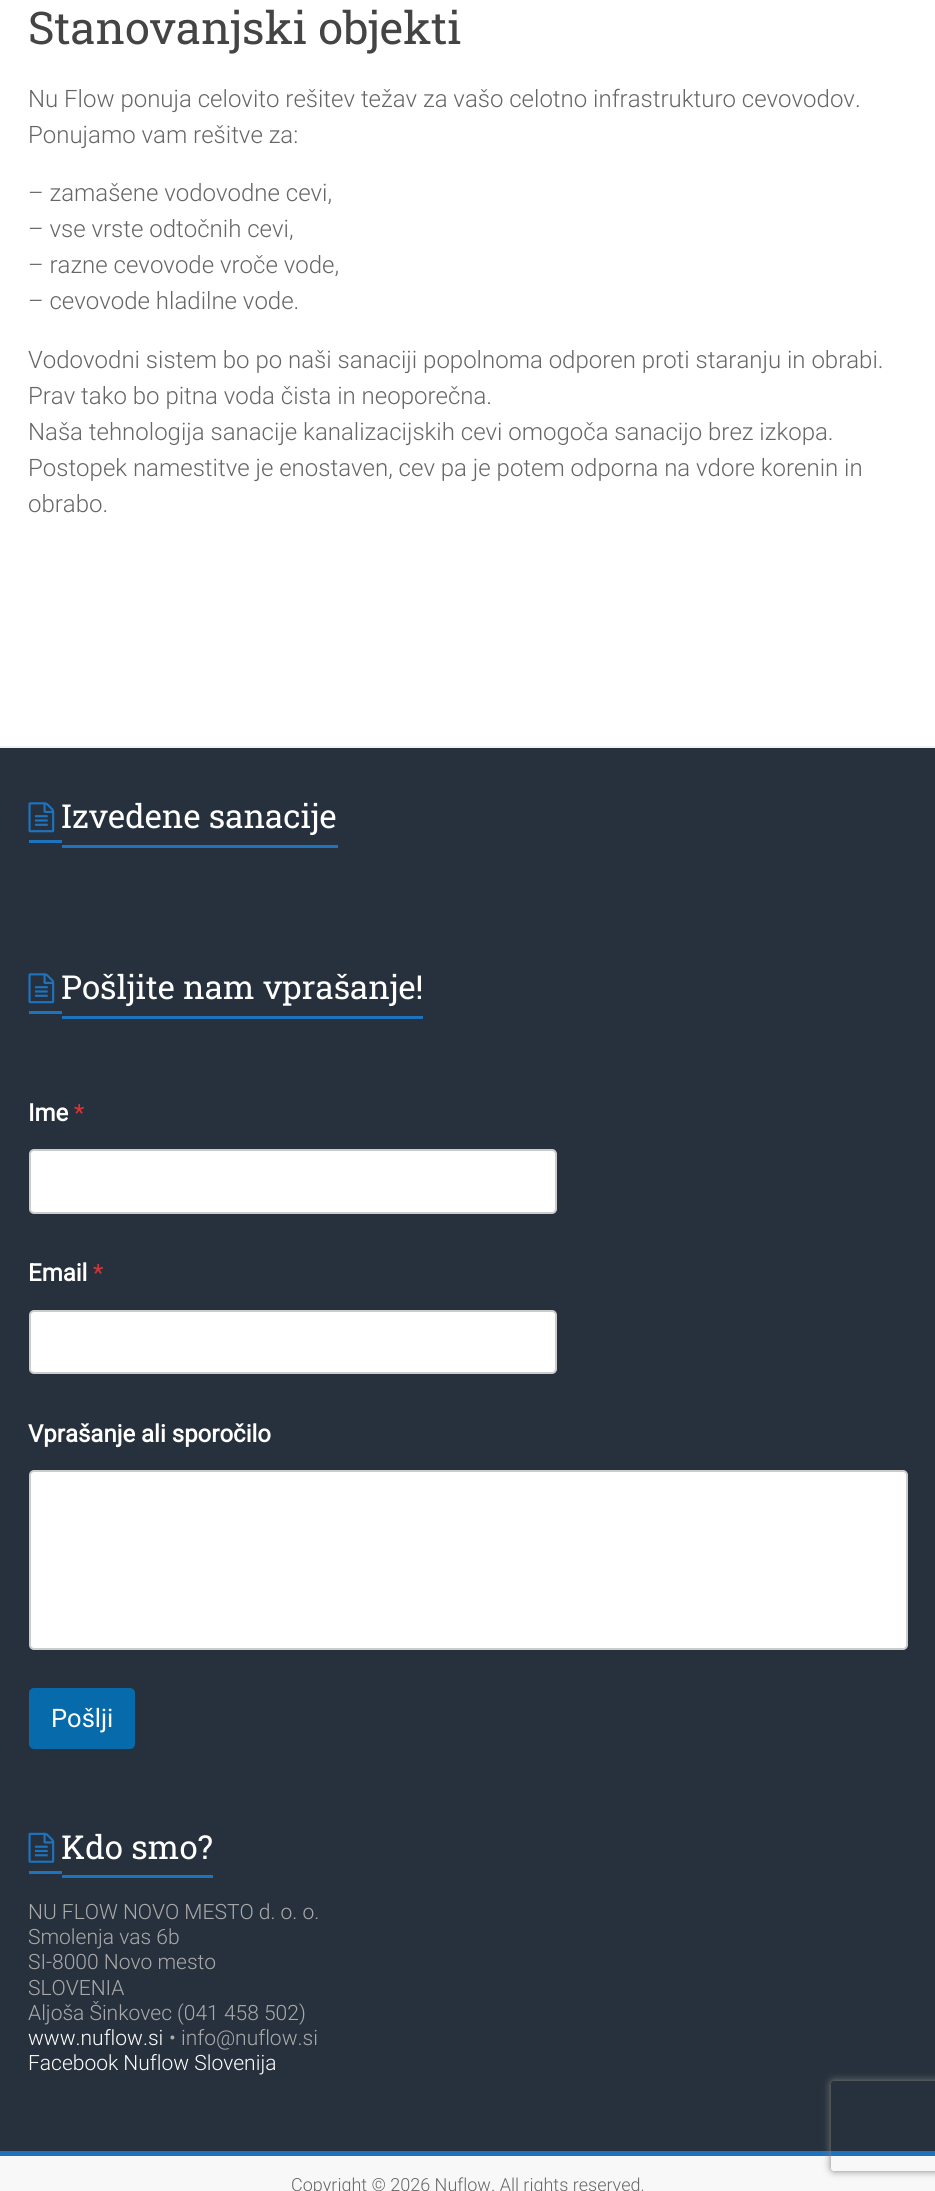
#include <cairo/cairo.h>
#include <math.h>
#include <stddef.h>


static void rounded_rect(cairo_t *cr, double x, double y, double w, double h, double r) {
  cairo_new_sub_path(cr);
  cairo_arc(cr, x + w - r, y + h - r, r, 0, M_PI / 2);
  cairo_arc(cr, x + r, y + h - r, r, M_PI / 2, M_PI);
  cairo_arc(cr, x + r, y + r, r, M_PI, 1.5 * M_PI);
  cairo_arc(cr, x + w - r, y + r, r, 1.5 * M_PI, 2 * M_PI);
  cairo_close_path(cr);
}

static void draw_shadow(cairo_t *cr, double x, double y, double w, double h, double r, double blur, double alpha) {
  cairo_push_group_with_content(cr, CAIRO_CONTENT_ALPHA);
  cairo_set_operator(cr, CAIRO_OPERATOR_SOURCE);
  for (int i = 15; i >= -15 && fmin(w, h) + blur * i / 3 > 0; i -= 2) {
    double e = blur * i / 6;
    cairo_set_source_rgba(cr, 0, 0, 0, alpha * erfc((i - 1) / 8.5) / 2);
    rounded_rect(cr, x - e, y - e, w + 2 * e, h + 2 * e, fmax(0, fmin(r + e + blur * .6, fmin(w, h) / 2 + e)));
    cairo_fill(cr);
  }
  cairo_pattern_t *soft = cairo_pop_group(cr);
  cairo_mask(cr, soft);
  cairo_pattern_destroy(soft);
}

static void draw_image(cairo_t *cr, const char *path, double x, double y, double w, double h) {
  cairo_surface_t *image = cairo_image_surface_create_from_png(path);
  cairo_save(cr);
  cairo_set_source_surface(cr, image, x, y);
  cairo_rectangle(cr, x, y, w, h);
  cairo_fill(cr);
  cairo_restore(cr);
  cairo_surface_destroy(image);
}

static void draw(cairo_t *cr) {
  cairo_set_source_rgb(cr, 1, 1, 1);
  cairo_paint(cr);
  cairo_set_source_rgb(cr, 39 / 255.0, 49 / 255.0, 61 / 255.0);
  cairo_rectangle(cr, 0, 748, 935, 1403);
  cairo_fill(cr);
  cairo_set_source_rgb(cr, 242 / 255.0, 242 / 255.0, 242 / 255.0);
  cairo_rectangle(cr, 0, 746, 935, 2);
  cairo_fill(cr);
  draw_image(cr, "images/1.png", 28, 802, 27, 31);
  cairo_set_source_rgb(cr, 30 / 255.0, 115 / 255.0, 190 / 255.0);
  cairo_rectangle(cr, 29, 840, 33, 3);
  cairo_fill(cr);
  cairo_rectangle(cr, 62, 845, 276, 3);
  cairo_fill(cr);
  draw_image(cr, "images/1.png", 28, 973, 27, 31);
  cairo_rectangle(cr, 29, 1011, 33, 3);
  cairo_fill(cr);
  cairo_rectangle(cr, 62, 1016, 361, 3);
  cairo_fill(cr);
  cairo_set_source_rgb(cr, 1, 1, 1);
  rounded_rect(cr, 30, 1150, 526, 63, 4);
  cairo_fill_preserve(cr);
  cairo_set_source_rgb(cr, 204 / 255.0, 204 / 255.0, 204 / 255.0);
  cairo_stroke(cr);
  cairo_set_source_rgb(cr, 1, 1, 1);
  rounded_rect(cr, 30, 1311, 526, 62, 4);
  cairo_fill_preserve(cr);
  cairo_set_source_rgb(cr, 204 / 255.0, 204 / 255.0, 204 / 255.0);
  cairo_stroke(cr);
  cairo_set_source_rgb(cr, 1, 1, 1);
  rounded_rect(cr, 30, 1471, 877, 178, 4);
  cairo_fill_preserve(cr);
  cairo_set_source_rgb(cr, 204 / 255.0, 204 / 255.0, 204 / 255.0);
  cairo_stroke(cr);
  cairo_set_source_rgb(cr, 6 / 255.0, 106 / 255.0, 171 / 255.0);
  rounded_rect(cr, 29, 1688, 106, 61, 5);
  cairo_fill(cr);
  draw_image(cr, "images/2.png", 28, 1832, 27, 31);
  cairo_set_source_rgb(cr, 30 / 255.0, 115 / 255.0, 190 / 255.0);
  cairo_rectangle(cr, 29, 1871, 33, 3);
  cairo_fill(cr);
  cairo_rectangle(cr, 62, 1875, 151, 3);
  cairo_fill(cr);
  cairo_set_source_rgb(cr, 248 / 255.0, 248 / 255.0, 248 / 255.0);
  cairo_rectangle(cr, 0, 2156, 935, 35);
  cairo_fill(cr);
  cairo_set_source_rgb(cr, 30 / 255.0, 115 / 255.0, 190 / 255.0);
  cairo_rectangle(cr, 0, 2151, 935, 5);
  cairo_fill(cr);
  cairo_save(cr);
  cairo_set_fill_rule(cr, CAIRO_FILL_RULE_EVEN_ODD);
  cairo_new_path(cr);
  cairo_move_to(cr, 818, 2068);
  cairo_line_to(cr, 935, 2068);
  cairo_line_to(cr, 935, 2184);
  cairo_line_to(cr, 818, 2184);
  cairo_close_path(cr);
  cairo_move_to(cr, 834, 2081);
  cairo_line_to(cr, 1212, 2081);
  cairo_curve_to(cr, 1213.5, 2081, 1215, 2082.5, 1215, 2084);
  cairo_line_to(cr, 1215, 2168);
  cairo_curve_to(cr, 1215, 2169.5, 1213.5, 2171, 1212, 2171);
  cairo_line_to(cr, 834, 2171);
  cairo_curve_to(cr, 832.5, 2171, 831, 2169.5, 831, 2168);
  cairo_line_to(cr, 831, 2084);
  cairo_curve_to(cr, 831, 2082.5, 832.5, 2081, 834, 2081);
  cairo_close_path(cr);
  cairo_clip(cr);
  cairo_set_source_rgb(cr, 128 / 255.0, 128 / 255.0, 128 / 255.0);
  draw_shadow(cr, 831, 2081, 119, 90, 3, 4, 1);
  cairo_restore(cr);
  cairo_select_font_face(cr, "Roboto Slab", CAIRO_FONT_SLANT_NORMAL, CAIRO_FONT_WEIGHT_NORMAL);
  cairo_set_font_size(cr, 45);
  cairo_set_source_rgb(cr, 68 / 255.0, 68 / 255.0, 68 / 255.0);
  cairo_move_to(cr, 28, 44);
  cairo_show_text(cr, "Stanovanjski objekti");
  cairo_select_font_face(cr, "Roboto Light", CAIRO_FONT_SLANT_NORMAL, CAIRO_FONT_WEIGHT_NORMAL);
  cairo_set_font_size(cr, 24);
  cairo_set_source_rgb(cr, 102 / 255.0, 102 / 255.0, 102 / 255.0);
  cairo_move_to(cr, 28, 107);
  cairo_show_text(cr, "Nu Flow ponuja celovito rešitev težav za vašo celotno infrastrukturo cevovodov.");
  cairo_move_to(cr, 28, 143);
  cairo_show_text(cr, "Ponujamo vam rešitve za:");
  cairo_move_to(cr, 28, 201);
  cairo_show_text(cr, "– zamašene vodovodne cevi,");
  cairo_move_to(cr, 28, 237);
  cairo_show_text(cr, "– vse vrste odtočnih cevi,");
  cairo_move_to(cr, 28, 273);
  cairo_show_text(cr, "– razne cevovode vroče vode,");
  cairo_move_to(cr, 28, 309);
  cairo_show_text(cr, "– cevovode hladilne vode.");
  cairo_move_to(cr, 28, 368);
  cairo_show_text(cr, "Vodovodni sistem bo po naši sanaciji popolnoma odporen proti staranju in obrabi.");
  cairo_move_to(cr, 28, 404);
  cairo_show_text(cr, "Prav tako bo pitna voda čista in neoporečna.");
  cairo_move_to(cr, 28, 440);
  cairo_show_text(cr, "Naša tehnologija sanacije kanalizacijskih cevi omogoča sanacijo brez izkopa.");
  cairo_move_to(cr, 28, 476);
  cairo_show_text(cr, "Postopek namestitve je enostaven, cev pa je potem odporna na vdore korenin in");
  cairo_move_to(cr, 28, 512);
  cairo_show_text(cr, "obrabo.");
  cairo_select_font_face(cr, "Roboto Slab", CAIRO_FONT_SLANT_NORMAL, CAIRO_FONT_WEIGHT_NORMAL);
  cairo_set_font_size(cr, 33);
  cairo_set_source_rgb(cr, 1, 1, 1);
  cairo_move_to(cr, 61, 828);
  cairo_show_text(cr, "Izvedene sanacije");
  cairo_move_to(cr, 61, 999);
  cairo_show_text(cr, "Pošljite nam vprašanje!");
  cairo_select_font_face(cr, "Roboto", CAIRO_FONT_SLANT_NORMAL, CAIRO_FONT_WEIGHT_BOLD);
  cairo_set_font_size(cr, 24);
  cairo_move_to(cr, 28, 1121);
  cairo_show_text(cr, "Ime");
  cairo_select_font_face(cr, "Roboto", CAIRO_FONT_SLANT_NORMAL, CAIRO_FONT_WEIGHT_NORMAL);
  cairo_set_source_rgb(cr, 214 / 255.0, 54 / 255.0, 55 / 255.0);
  cairo_move_to(cr, 74, 1121);
  cairo_show_text(cr, "*");
  cairo_select_font_face(cr, "Roboto", CAIRO_FONT_SLANT_NORMAL, CAIRO_FONT_WEIGHT_BOLD);
  cairo_set_source_rgb(cr, 1, 1, 1);
  cairo_move_to(cr, 28, 1281);
  cairo_show_text(cr, "Email");
  cairo_select_font_face(cr, "Roboto", CAIRO_FONT_SLANT_NORMAL, CAIRO_FONT_WEIGHT_NORMAL);
  cairo_set_source_rgb(cr, 214 / 255.0, 54 / 255.0, 55 / 255.0);
  cairo_move_to(cr, 93, 1281);
  cairo_show_text(cr, "*");
  cairo_select_font_face(cr, "Roboto", CAIRO_FONT_SLANT_NORMAL, CAIRO_FONT_WEIGHT_BOLD);
  cairo_set_source_rgb(cr, 1, 1, 1);
  cairo_move_to(cr, 28, 1442);
  cairo_show_text(cr, "Vprašanje ali sporočilo");
  cairo_select_font_face(cr, "Roboto", CAIRO_FONT_SLANT_NORMAL, CAIRO_FONT_WEIGHT_NORMAL);
  cairo_set_font_size(cr, 25.5);
  cairo_move_to(cr, 51, 1727);
  cairo_show_text(cr, "Pošlji");
  cairo_select_font_face(cr, "Roboto Slab", CAIRO_FONT_SLANT_NORMAL, CAIRO_FONT_WEIGHT_NORMAL);
  cairo_set_font_size(cr, 33);
  cairo_move_to(cr, 61, 1859);
  cairo_show_text(cr, "Kdo smo?");
  cairo_select_font_face(cr, "Roboto Light", CAIRO_FONT_SLANT_NORMAL, CAIRO_FONT_WEIGHT_NORMAL);
  cairo_set_font_size(cr, 21);
  cairo_set_source_rgb(cr, 170 / 255.0, 170 / 255.0, 170 / 255.0);
  cairo_move_to(cr, 28, 1919);
  cairo_show_text(cr, "NU FLOW NOVO MESTO d. o. o.");
  cairo_move_to(cr, 28, 1944);
  cairo_show_text(cr, "Smolenja vas 6b");
  cairo_move_to(cr, 28, 1969);
  cairo_show_text(cr, "SI-8000 Novo mesto");
  cairo_move_to(cr, 28, 1995);
  cairo_show_text(cr, "SLOVENIA");
  cairo_move_to(cr, 28, 2020);
  cairo_show_text(cr, "Aljoša Šinkovec (041 458 502)");
  cairo_set_source_rgb(cr, 1, 1, 1);
  cairo_move_to(cr, 28, 2045);
  cairo_show_text(cr, "www.nuflow.si");
  cairo_set_source_rgb(cr, 170 / 255.0, 170 / 255.0, 170 / 255.0);
  cairo_move_to(cr, 169, 2045);
  cairo_show_text(cr, "• info@nuflow.si");
  cairo_set_source_rgb(cr, 1, 1, 1);
  cairo_move_to(cr, 28, 2070);
  cairo_show_text(cr, "Facebook Nuflow Slovenija");
  cairo_set_font_size(cr, 18);
  cairo_set_source_rgb(cr, 102 / 255.0, 102 / 255.0, 102 / 255.0);
  cairo_move_to(cr, 291, 2191);
  cairo_show_text(cr, "Copyright © 2026 Nuflow. All rights reserved.");
}

int main(void) {
  cairo_surface_t *surface = cairo_image_surface_create(CAIRO_FORMAT_RGB24, 935, 2191);
  cairo_t *cr = cairo_create(surface);
  cairo_font_options_t *options = cairo_font_options_create();
  cairo_font_options_set_hint_metrics(options, CAIRO_HINT_METRICS_OFF);
  cairo_font_options_set_hint_style(options, CAIRO_HINT_STYLE_NONE);
  cairo_set_font_options(cr, options);
  cairo_set_miter_limit(cr, 4);
  draw(cr);
  cairo_surface_write_to_png(surface, "out.png");
  cairo_font_options_destroy(options);
  cairo_destroy(cr);
  cairo_surface_destroy(surface);
  return 0;
}
